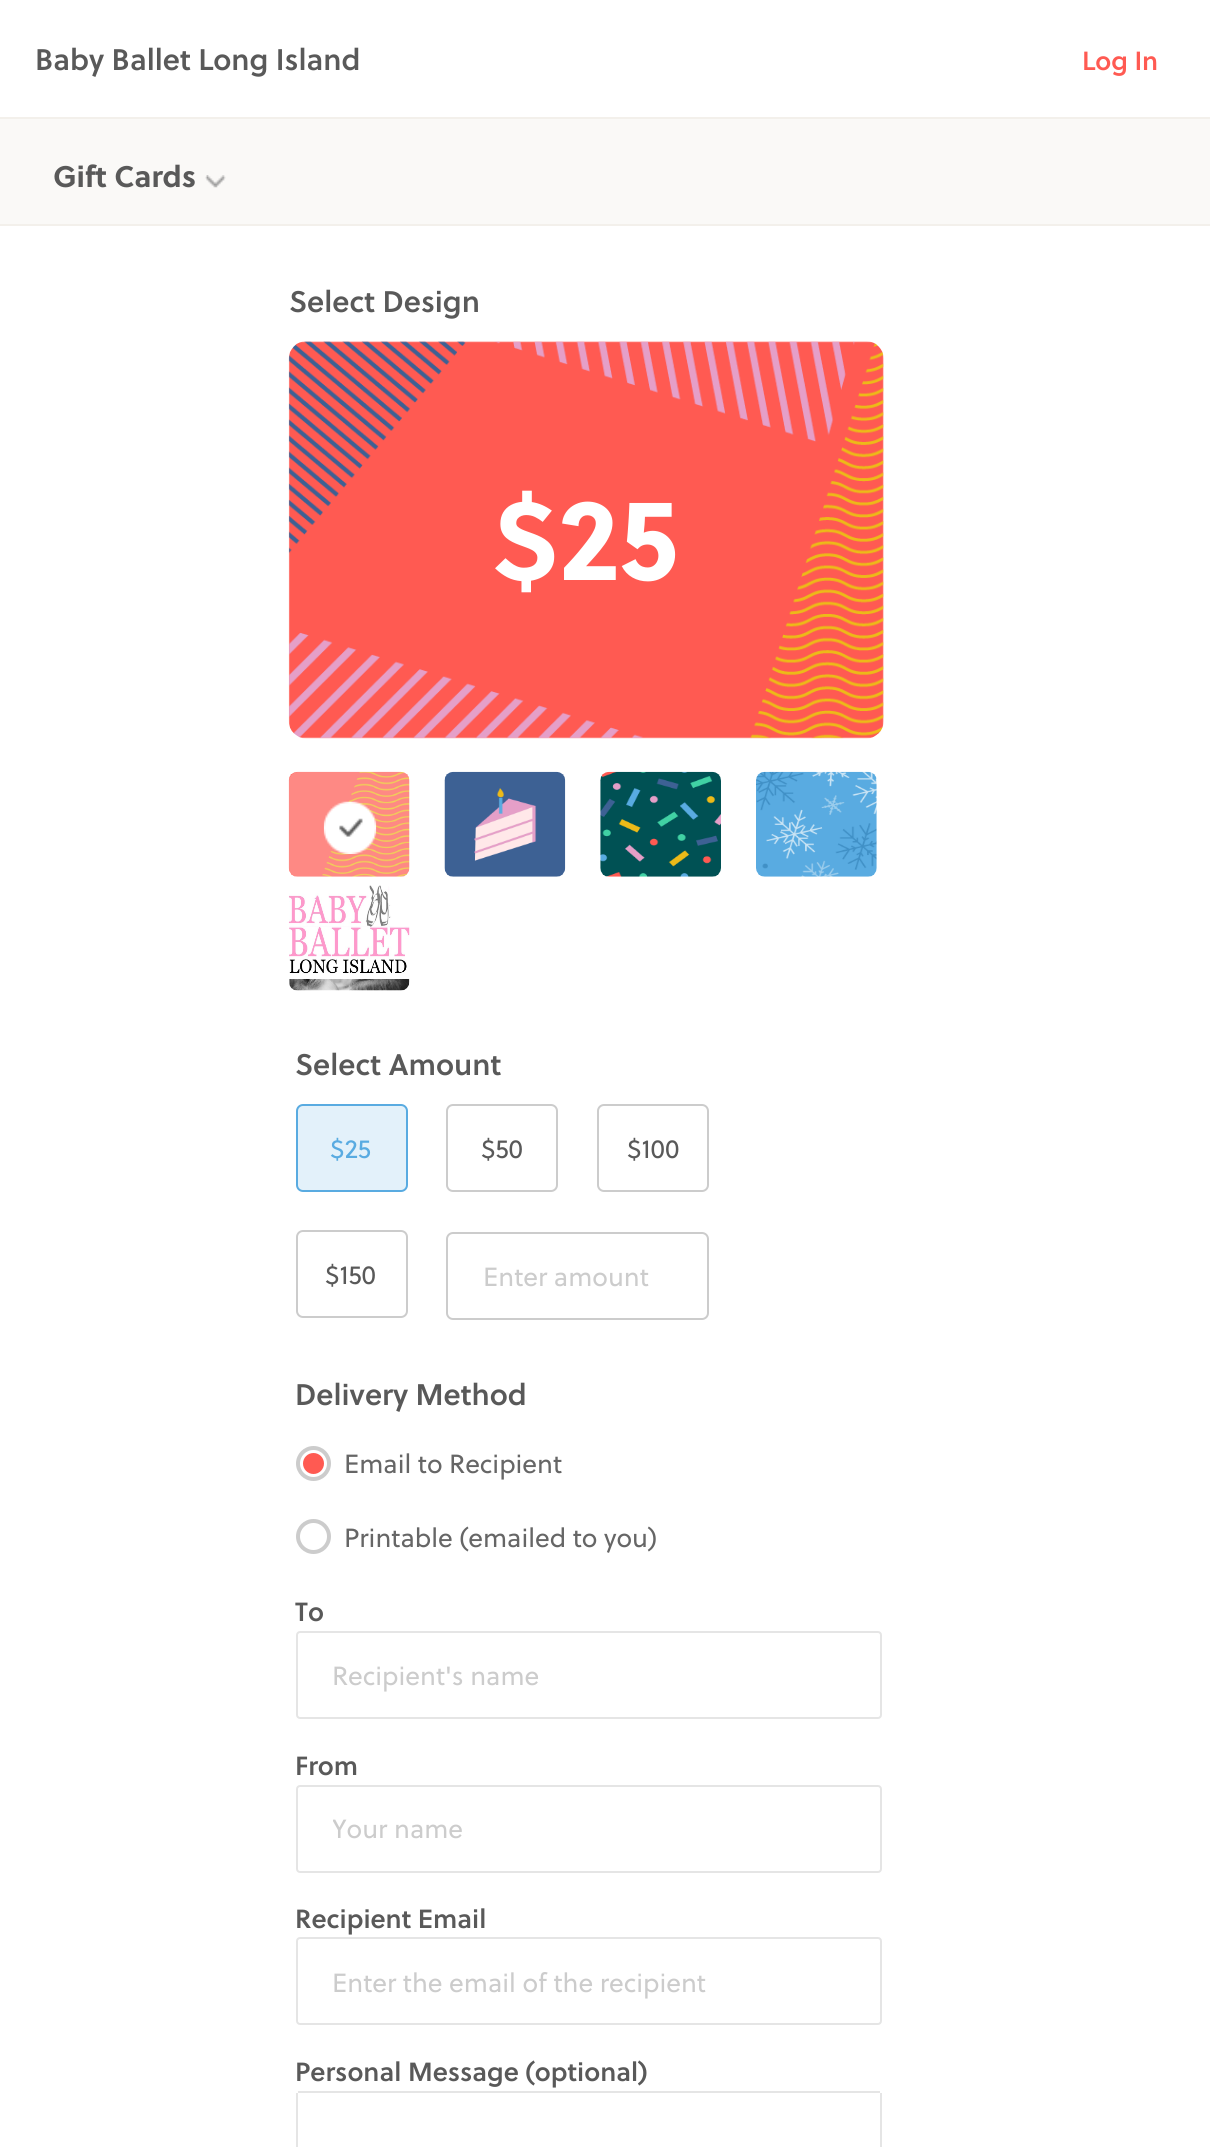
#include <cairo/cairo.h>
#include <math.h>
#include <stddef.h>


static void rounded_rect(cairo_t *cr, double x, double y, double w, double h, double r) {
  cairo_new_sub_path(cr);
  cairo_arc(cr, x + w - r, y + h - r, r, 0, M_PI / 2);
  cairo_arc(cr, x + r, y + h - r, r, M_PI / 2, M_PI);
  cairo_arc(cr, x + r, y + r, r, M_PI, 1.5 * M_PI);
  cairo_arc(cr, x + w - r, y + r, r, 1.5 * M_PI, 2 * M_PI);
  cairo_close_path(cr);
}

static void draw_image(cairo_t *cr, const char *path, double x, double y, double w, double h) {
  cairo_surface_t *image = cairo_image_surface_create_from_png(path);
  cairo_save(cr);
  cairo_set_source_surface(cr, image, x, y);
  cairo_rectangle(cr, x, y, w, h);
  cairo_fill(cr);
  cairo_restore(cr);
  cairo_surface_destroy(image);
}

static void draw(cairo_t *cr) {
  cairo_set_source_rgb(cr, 1, 1, 1);
  cairo_paint(cr);
  cairo_set_source_rgb(cr, 243 / 255.0, 240 / 255.0, 235 / 255.0);
  cairo_rectangle(cr, 0, 117, 1210, 2);
  cairo_fill(cr);
  cairo_set_source_rgb(cr, 250 / 255.0, 249 / 255.0, 247 / 255.0);
  cairo_rectangle(cr, 0, 119, 1210, 105);
  cairo_fill(cr);
  draw_image(cr, "images/1.png", 205, 175, 21, 13);
  cairo_set_source_rgb(cr, 243 / 255.0, 240 / 255.0, 235 / 255.0);
  cairo_rectangle(cr, 0, 224, 1210, 2);
  cairo_fill(cr);
  draw_image(cr, "images/2.png", 288, 341, 596, 398);
  draw_image(cr, "images/3.png", 288, 771, 122, 106);
  cairo_set_source_rgba(cr, 250 / 255.0, 249 / 255.0, 247 / 255.0, 0.3);
  rounded_rect(cr, 289, 772, 121, 105, 9);
  cairo_fill(cr);
  draw_image(cr, "images/4.png", 323, 801, 54, 53);
  draw_image(cr, "images/5.png", 444, 771, 122, 106);
  draw_image(cr, "images/6.png", 600, 771, 121, 106);
  draw_image(cr, "images/7.png", 756, 771, 121, 106);
  draw_image(cr, "images/8.png", 288, 885, 122, 106);
  cairo_set_source_rgb(cr, 227 / 255.0, 241 / 255.0, 250 / 255.0);
  rounded_rect(cr, 297, 1105, 110, 86, 6);
  cairo_fill_preserve(cr);
  cairo_set_source_rgb(cr, 89 / 255.0, 171 / 255.0, 225 / 255.0);
  cairo_stroke(cr);
  rounded_rect(cr, 447, 1105, 110, 86, 6);
  cairo_set_source_rgb(cr, 204 / 255.0, 204 / 255.0, 204 / 255.0);
  cairo_stroke(cr);
  rounded_rect(cr, 598, 1105, 110, 86, 6);
  cairo_stroke(cr);
  rounded_rect(cr, 297, 1231, 110, 86, 6);
  cairo_stroke(cr);
  rounded_rect(cr, 447, 1233, 261, 86, 6);
  cairo_stroke(cr);
  cairo_arc(cr, 313.5, 1463.5, 15.5, 0, 2 * M_PI);
  cairo_set_line_width(cr, 4);
  cairo_stroke(cr);
  cairo_set_source_rgb(cr, 1, 90 / 255.0, 82 / 255.0);
  cairo_arc(cr, 313.5, 1463.5, 10.5, 0, 2 * M_PI);
  cairo_fill(cr);
  cairo_arc(cr, 313.5, 1536.5, 15.5, 0, 2 * M_PI);
  cairo_set_source_rgb(cr, 204 / 255.0, 204 / 255.0, 204 / 255.0);
  cairo_stroke(cr);
  rounded_rect(cr, 297, 1632, 584, 86, 3);
  cairo_set_source_rgb(cr, 229 / 255.0, 229 / 255.0, 229 / 255.0);
  cairo_set_line_width(cr, 2);
  cairo_stroke(cr);
  rounded_rect(cr, 297, 1786, 584, 86, 3);
  cairo_stroke(cr);
  rounded_rect(cr, 297, 1938, 584, 86, 3);
  cairo_stroke(cr);
  cairo_rectangle(cr, 298, 2091, 582, 2);
  cairo_fill(cr);
  cairo_rectangle(cr, 880, 2093, 2, 54);
  cairo_fill(cr);
  cairo_rectangle(cr, 296, 2093, 2, 54);
  cairo_fill(cr);
  cairo_select_font_face(cr, "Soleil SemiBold", CAIRO_FONT_SLANT_NORMAL, CAIRO_FONT_WEIGHT_NORMAL);
  cairo_set_font_size(cr, 29.75);
  cairo_set_source_rgb(cr, 89 / 255.0, 89 / 255.0, 89 / 255.0);
  cairo_move_to(cr, 35, 70);
  cairo_show_text(cr, "Baby Ballet Long Island");
  cairo_set_font_size(cr, 26.25);
  cairo_set_source_rgb(cr, 1, 90 / 255.0, 82 / 255.0);
  cairo_move_to(cr, 1082, 70);
  cairo_show_text(cr, "Log In");
  cairo_select_font_face(cr, "Soleil", CAIRO_FONT_SLANT_NORMAL, CAIRO_FONT_WEIGHT_BOLD);
  cairo_set_font_size(cr, 29.75);
  cairo_set_source_rgb(cr, 89 / 255.0, 89 / 255.0, 89 / 255.0);
  cairo_move_to(cr, 53, 187);
  cairo_show_text(cr, "Gift Cards");
  cairo_select_font_face(cr, "Soleil SemiBold", CAIRO_FONT_SLANT_NORMAL, CAIRO_FONT_WEIGHT_NORMAL);
  cairo_move_to(cr, 289, 312);
  cairo_show_text(cr, "Select Design");
  cairo_select_font_face(cr, "Soleil", CAIRO_FONT_SLANT_NORMAL, CAIRO_FONT_WEIGHT_BOLD);
  cairo_set_font_size(cr, 116);
  cairo_set_source_rgb(cr, 1, 1, 1);
  cairo_move_to(cr, 494, 580);
  cairo_show_text(cr, "$25");
  cairo_select_font_face(cr, "Soleil SemiBold", CAIRO_FONT_SLANT_NORMAL, CAIRO_FONT_WEIGHT_NORMAL);
  cairo_set_font_size(cr, 29.75);
  cairo_set_source_rgb(cr, 89 / 255.0, 89 / 255.0, 89 / 255.0);
  cairo_move_to(cr, 295, 1075);
  cairo_show_text(cr, "Select Amount");
  cairo_select_font_face(cr, "Soleil", CAIRO_FONT_SLANT_NORMAL, CAIRO_FONT_WEIGHT_NORMAL);
  cairo_set_font_size(cr, 26.25);
  cairo_set_source_rgb(cr, 89 / 255.0, 171 / 255.0, 225 / 255.0);
  cairo_move_to(cr, 330, 1158);
  cairo_show_text(cr, "$25");
  cairo_set_source_rgb(cr, 89 / 255.0, 89 / 255.0, 89 / 255.0);
  cairo_move_to(cr, 481, 1158);
  cairo_show_text(cr, "$50");
  cairo_move_to(cr, 627, 1158);
  cairo_show_text(cr, "$100");
  cairo_move_to(cr, 325, 1284);
  cairo_show_text(cr, "$150");
  cairo_set_source_rgb(cr, 204 / 255.0, 204 / 255.0, 204 / 255.0);
  cairo_move_to(cr, 483, 1286);
  cairo_show_text(cr, "Enter amount");
  cairo_select_font_face(cr, "Soleil SemiBold", CAIRO_FONT_SLANT_NORMAL, CAIRO_FONT_WEIGHT_NORMAL);
  cairo_set_font_size(cr, 29.75);
  cairo_set_source_rgb(cr, 89 / 255.0, 89 / 255.0, 89 / 255.0);
  cairo_move_to(cr, 295, 1405);
  cairo_show_text(cr, "Delivery Method");
  cairo_select_font_face(cr, "Soleil", CAIRO_FONT_SLANT_NORMAL, CAIRO_FONT_WEIGHT_NORMAL);
  cairo_set_font_size(cr, 26.25);
  cairo_set_source_rgb(cr, 102 / 255.0, 102 / 255.0, 102 / 255.0);
  cairo_move_to(cr, 344, 1473);
  cairo_show_text(cr, "Email to Recipient");
  cairo_move_to(cr, 344, 1547);
  cairo_show_text(cr, "Printable (emailed to you)");
  cairo_select_font_face(cr, "Soleil SemiBold", CAIRO_FONT_SLANT_NORMAL, CAIRO_FONT_WEIGHT_NORMAL);
  cairo_set_source_rgb(cr, 89 / 255.0, 89 / 255.0, 89 / 255.0);
  cairo_move_to(cr, 295, 1621);
  cairo_show_text(cr, "To");
  cairo_select_font_face(cr, "Soleil", CAIRO_FONT_SLANT_NORMAL, CAIRO_FONT_WEIGHT_NORMAL);
  cairo_set_source_rgb(cr, 204 / 255.0, 204 / 255.0, 204 / 255.0);
  cairo_move_to(cr, 332, 1685);
  cairo_show_text(cr, "Recipient's name");
  cairo_select_font_face(cr, "Soleil SemiBold", CAIRO_FONT_SLANT_NORMAL, CAIRO_FONT_WEIGHT_NORMAL);
  cairo_set_source_rgb(cr, 89 / 255.0, 89 / 255.0, 89 / 255.0);
  cairo_move_to(cr, 295, 1775);
  cairo_show_text(cr, "From");
  cairo_save(cr);
  cairo_rectangle(cr, 333, 1810, 544, 38);
  cairo_clip(cr);
  cairo_select_font_face(cr, "Soleil", CAIRO_FONT_SLANT_NORMAL, CAIRO_FONT_WEIGHT_NORMAL);
  cairo_set_source_rgb(cr, 204 / 255.0, 204 / 255.0, 204 / 255.0);
  cairo_move_to(cr, 332, 1838);
  cairo_show_text(cr, "Your name");
  cairo_restore(cr);
  cairo_move_to(cr, 295, 1928);
  cairo_show_text(cr, "Recipient Email");
  cairo_select_font_face(cr, "Soleil", CAIRO_FONT_SLANT_NORMAL, CAIRO_FONT_WEIGHT_NORMAL);
  cairo_set_source_rgb(cr, 204 / 255.0, 204 / 255.0, 204 / 255.0);
  cairo_move_to(cr, 332, 1992);
  cairo_show_text(cr, "Enter the email of the recipient");
  cairo_select_font_face(cr, "Soleil SemiBold", CAIRO_FONT_SLANT_NORMAL, CAIRO_FONT_WEIGHT_NORMAL);
  cairo_set_source_rgb(cr, 89 / 255.0, 89 / 255.0, 89 / 255.0);
  cairo_move_to(cr, 295, 2081);
  cairo_show_text(cr, "Personal Message (optional)");
}

int main(void) {
  cairo_surface_t *surface = cairo_image_surface_create(CAIRO_FORMAT_RGB24, 1210, 2147);
  cairo_t *cr = cairo_create(surface);
  cairo_font_options_t *options = cairo_font_options_create();
  cairo_font_options_set_hint_metrics(options, CAIRO_HINT_METRICS_OFF);
  cairo_font_options_set_hint_style(options, CAIRO_HINT_STYLE_NONE);
  cairo_set_font_options(cr, options);
  cairo_set_miter_limit(cr, 4);
  draw(cr);
  cairo_surface_write_to_png(surface, "out.png");
  cairo_font_options_destroy(options);
  cairo_destroy(cr);
  cairo_surface_destroy(surface);
  return 0;
}
